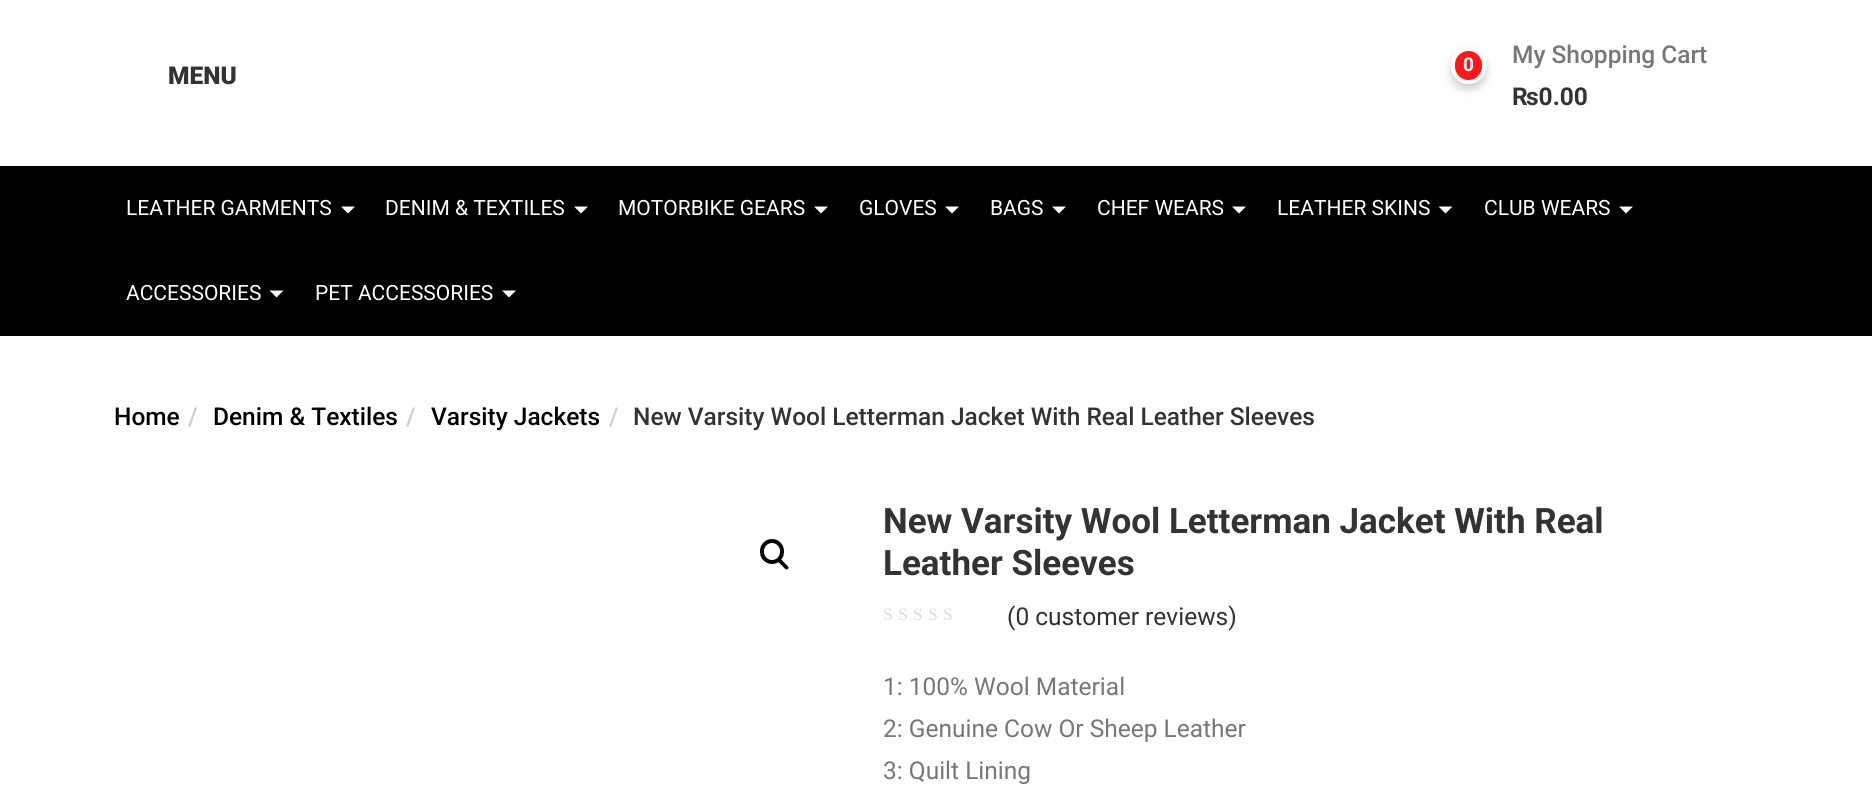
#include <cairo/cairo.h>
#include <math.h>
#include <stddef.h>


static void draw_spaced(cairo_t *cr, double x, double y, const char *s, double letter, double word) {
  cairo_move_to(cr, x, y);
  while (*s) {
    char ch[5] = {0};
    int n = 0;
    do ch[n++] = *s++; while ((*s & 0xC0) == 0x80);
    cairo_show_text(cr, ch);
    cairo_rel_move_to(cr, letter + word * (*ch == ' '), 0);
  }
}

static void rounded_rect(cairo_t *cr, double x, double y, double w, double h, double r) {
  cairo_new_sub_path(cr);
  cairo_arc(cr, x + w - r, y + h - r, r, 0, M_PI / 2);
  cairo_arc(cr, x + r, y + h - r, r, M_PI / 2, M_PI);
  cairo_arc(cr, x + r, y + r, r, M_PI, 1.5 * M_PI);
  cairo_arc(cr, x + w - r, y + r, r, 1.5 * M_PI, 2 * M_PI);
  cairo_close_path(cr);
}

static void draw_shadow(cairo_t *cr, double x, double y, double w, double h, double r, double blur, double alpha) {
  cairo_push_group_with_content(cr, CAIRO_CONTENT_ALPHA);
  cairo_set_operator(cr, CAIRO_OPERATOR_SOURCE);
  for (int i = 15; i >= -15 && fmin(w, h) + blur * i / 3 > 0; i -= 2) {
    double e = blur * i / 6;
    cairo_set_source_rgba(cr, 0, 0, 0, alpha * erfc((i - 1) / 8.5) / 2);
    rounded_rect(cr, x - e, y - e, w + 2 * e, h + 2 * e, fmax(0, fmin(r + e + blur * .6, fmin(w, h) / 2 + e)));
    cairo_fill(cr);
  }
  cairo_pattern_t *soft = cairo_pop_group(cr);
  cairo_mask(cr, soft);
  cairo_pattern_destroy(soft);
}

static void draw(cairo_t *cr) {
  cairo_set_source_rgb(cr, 1, 1, 1);
  cairo_paint(cr);
  cairo_set_source_rgb(cr, 0, 0, 0);
  draw_shadow(cr, 1451, 53, 35, 36, 17.5, 4.5, 0.2);
  cairo_set_source_rgb(cr, 1, 22 / 255.0, 22 / 255.0);
  rounded_rect(cr, 1453, 49, 31, 33, 15.5);
  cairo_fill_preserve(cr);
  cairo_set_source_rgb(cr, 1, 1, 1);
  cairo_set_line_width(cr, 4);
  cairo_stroke(cr);
  cairo_set_source_rgb(cr, 0, 0, 0);
  cairo_rectangle(cr, 0, 166, 1872, 170);
  cairo_fill(cr);
  cairo_set_source_rgb(cr, 1, 1, 1);
  cairo_new_path(cr);
  cairo_move_to(cr, 341, 206.5);
  cairo_line_to(cr, 355, 206.5);
  cairo_line_to(cr, 348, 213.5);
  cairo_close_path(cr);
  cairo_fill(cr);
  cairo_new_path(cr);
  cairo_move_to(cr, 574, 206.5);
  cairo_line_to(cr, 588, 206.5);
  cairo_line_to(cr, 581, 213.5);
  cairo_close_path(cr);
  cairo_fill(cr);
  cairo_new_path(cr);
  cairo_move_to(cr, 814, 206.5);
  cairo_line_to(cr, 828, 206.5);
  cairo_line_to(cr, 821, 213.5);
  cairo_close_path(cr);
  cairo_fill(cr);
  cairo_new_path(cr);
  cairo_move_to(cr, 945, 206.5);
  cairo_line_to(cr, 959, 206.5);
  cairo_line_to(cr, 952, 213.5);
  cairo_close_path(cr);
  cairo_fill(cr);
  cairo_new_path(cr);
  cairo_move_to(cr, 1052, 206.5);
  cairo_line_to(cr, 1066, 206.5);
  cairo_line_to(cr, 1059, 213.5);
  cairo_close_path(cr);
  cairo_fill(cr);
  cairo_new_path(cr);
  cairo_move_to(cr, 1232, 206.5);
  cairo_line_to(cr, 1246, 206.5);
  cairo_line_to(cr, 1239, 213.5);
  cairo_close_path(cr);
  cairo_fill(cr);
  cairo_new_path(cr);
  cairo_move_to(cr, 1438.5, 206.5);
  cairo_line_to(cr, 1452.5, 206.5);
  cairo_line_to(cr, 1445.5, 213.5);
  cairo_close_path(cr);
  cairo_fill(cr);
  cairo_new_path(cr);
  cairo_move_to(cr, 1619, 206.5);
  cairo_line_to(cr, 1633, 206.5);
  cairo_line_to(cr, 1626, 213.5);
  cairo_close_path(cr);
  cairo_fill(cr);
  cairo_new_path(cr);
  cairo_move_to(cr, 269.5, 290.5);
  cairo_line_to(cr, 283.5, 290.5);
  cairo_line_to(cr, 276.5, 297.5);
  cairo_close_path(cr);
  cairo_fill(cr);
  cairo_new_path(cr);
  cairo_move_to(cr, 502, 290.5);
  cairo_line_to(cr, 516, 290.5);
  cairo_line_to(cr, 509, 297.5);
  cairo_close_path(cr);
  cairo_fill(cr);
  rounded_rect(cr, 762, 541, 20, 21, 10);
  cairo_set_source_rgb(cr, 0, 0, 0);
  cairo_stroke(cr);
  cairo_new_path(cr);
  cairo_move_to(cr, 778, 559);
  cairo_curve_to(cr, 780, 557, 783.5, 562, 784.5, 563);
  cairo_curve_to(cr, 785.5, 564, 790, 567, 788, 569);
  cairo_curve_to(cr, 786, 571, 783, 566.5, 782, 565.5);
  cairo_curve_to(cr, 781, 564.5, 776, 561, 778, 559);
  cairo_close_path(cr);
  cairo_fill(cr);
  cairo_select_font_face(cr, "Roboto Black", CAIRO_FONT_SLANT_NORMAL, CAIRO_FONT_WEIGHT_NORMAL);
  cairo_set_font_size(cr, 24.5);
  cairo_set_source_rgb(cr, 51 / 255.0, 51 / 255.0, 51 / 255.0);
  cairo_move_to(cr, 168, 84);
  cairo_show_text(cr, "MENU");
  cairo_select_font_face(cr, "Roboto", CAIRO_FONT_SLANT_NORMAL, CAIRO_FONT_WEIGHT_BOLD);
  cairo_set_font_size(cr, 19);
  cairo_set_source_rgb(cr, 1, 1, 1);
  cairo_move_to(cr, 1463, 71);
  cairo_show_text(cr, "0");
  cairo_select_font_face(cr, "Roboto Medium", CAIRO_FONT_SLANT_NORMAL, CAIRO_FONT_WEIGHT_NORMAL);
  cairo_set_font_size(cr, 24.5);
  cairo_set_source_rgb(cr, 119 / 255.0, 119 / 255.0, 119 / 255.0);
  cairo_move_to(cr, 1512, 63);
  cairo_show_text(cr, "My Shopping Cart");
  cairo_select_font_face(cr, "Roboto", CAIRO_FONT_SLANT_NORMAL, CAIRO_FONT_WEIGHT_BOLD);
  cairo_set_source_rgb(cr, 51 / 255.0, 51 / 255.0, 51 / 255.0);
  cairo_move_to(cr, 1512, 105);
  cairo_show_text(cr, "₨0.00");
  cairo_select_font_face(cr, "Roboto", CAIRO_FONT_SLANT_NORMAL, CAIRO_FONT_WEIGHT_NORMAL);
  cairo_set_font_size(cr, 21);
  cairo_set_source_rgb(cr, 1, 1, 1);
  cairo_move_to(cr, 126, 215);
  cairo_show_text(cr, "LEATHER GARMENTS");
  cairo_move_to(cr, 385, 215);
  cairo_show_text(cr, "DENIM & TEXTILES");
  cairo_move_to(cr, 618, 215);
  cairo_show_text(cr, "MOTORBIKE GEARS");
  cairo_move_to(cr, 859, 215);
  cairo_show_text(cr, "GLOVES");
  cairo_move_to(cr, 990, 215);
  cairo_show_text(cr, "BAGS");
  cairo_move_to(cr, 1097, 215);
  cairo_show_text(cr, "CHEF WEARS");
  cairo_move_to(cr, 1277, 215);
  cairo_show_text(cr, "LEATHER SKINS");
  cairo_move_to(cr, 1484, 215);
  cairo_show_text(cr, "CLUB WEARS");
  cairo_move_to(cr, 126, 300);
  cairo_show_text(cr, "ACCESSORIES");
  cairo_move_to(cr, 315, 300);
  cairo_show_text(cr, "PET ACCESSORIES");
  cairo_select_font_face(cr, "Roboto Medium", CAIRO_FONT_SLANT_NORMAL, CAIRO_FONT_WEIGHT_NORMAL);
  cairo_set_font_size(cr, 24.5);
  cairo_set_source_rgb(cr, 0, 0, 0);
  cairo_move_to(cr, 114, 425);
  cairo_show_text(cr, "Home");
  cairo_set_source_rgb(cr, 204 / 255.0, 204 / 255.0, 204 / 255.0);
  cairo_move_to(cr, 188, 425);
  cairo_show_text(cr, "/");
  cairo_set_source_rgb(cr, 0, 0, 0);
  cairo_move_to(cr, 213, 425);
  cairo_show_text(cr, "Denim & Textiles");
  cairo_set_source_rgb(cr, 204 / 255.0, 204 / 255.0, 204 / 255.0);
  cairo_move_to(cr, 406, 425);
  cairo_show_text(cr, "/");
  cairo_set_source_rgb(cr, 0, 0, 0);
  cairo_move_to(cr, 431, 425);
  cairo_show_text(cr, "Varsity Jackets");
  cairo_set_source_rgb(cr, 204 / 255.0, 204 / 255.0, 204 / 255.0);
  cairo_move_to(cr, 609, 425);
  cairo_show_text(cr, "/");
  cairo_set_source_rgb(cr, 51 / 255.0, 51 / 255.0, 51 / 255.0);
  cairo_move_to(cr, 633, 425);
  cairo_show_text(cr, "New Varsity Wool Letterman Jacket With Real Leather Sleeves");
  cairo_select_font_face(cr, "Roboto", CAIRO_FONT_SLANT_NORMAL, CAIRO_FONT_WEIGHT_BOLD);
  cairo_set_font_size(cr, 35);
  cairo_move_to(cr, 883, 533);
  cairo_show_text(cr, "New Varsity Wool Letterman Jacket With Real");
  cairo_move_to(cr, 883, 575);
  cairo_show_text(cr, "Leather Sleeves");
  cairo_select_font_face(cr, "Liberation Serif", CAIRO_FONT_SLANT_NORMAL, CAIRO_FONT_WEIGHT_NORMAL);
  cairo_set_font_size(cr, 17.5);
  cairo_set_source_rgb(cr, 219 / 255.0, 219 / 255.0, 219 / 255.0);
  draw_spaced(cr, 883, 620, "SSSSS", 5.25, 0);
  cairo_select_font_face(cr, "Roboto", CAIRO_FONT_SLANT_NORMAL, CAIRO_FONT_WEIGHT_NORMAL);
  cairo_set_font_size(cr, 24.5);
  cairo_set_source_rgb(cr, 51 / 255.0, 51 / 255.0, 51 / 255.0);
  cairo_move_to(cr, 1007, 625);
  cairo_show_text(cr, "(0 customer reviews)");
  cairo_set_source_rgb(cr, 119 / 255.0, 119 / 255.0, 119 / 255.0);
  cairo_move_to(cr, 883, 695);
  cairo_show_text(cr, "1: 100% Wool Material");
  cairo_move_to(cr, 883, 737);
  cairo_show_text(cr, "2: Genuine Cow Or Sheep Leather");
  cairo_move_to(cr, 883, 779);
  cairo_show_text(cr, "3: Quilt Lining");
}

int main(void) {
  cairo_surface_t *surface = cairo_image_surface_create(CAIRO_FORMAT_RGB24, 1872, 793);
  cairo_t *cr = cairo_create(surface);
  cairo_font_options_t *options = cairo_font_options_create();
  cairo_font_options_set_hint_metrics(options, CAIRO_HINT_METRICS_OFF);
  cairo_font_options_set_hint_style(options, CAIRO_HINT_STYLE_NONE);
  cairo_set_font_options(cr, options);
  cairo_set_miter_limit(cr, 4);
  draw(cr);
  cairo_surface_write_to_png(surface, "out.png");
  cairo_font_options_destroy(options);
  cairo_destroy(cr);
  cairo_surface_destroy(surface);
  return 0;
}
